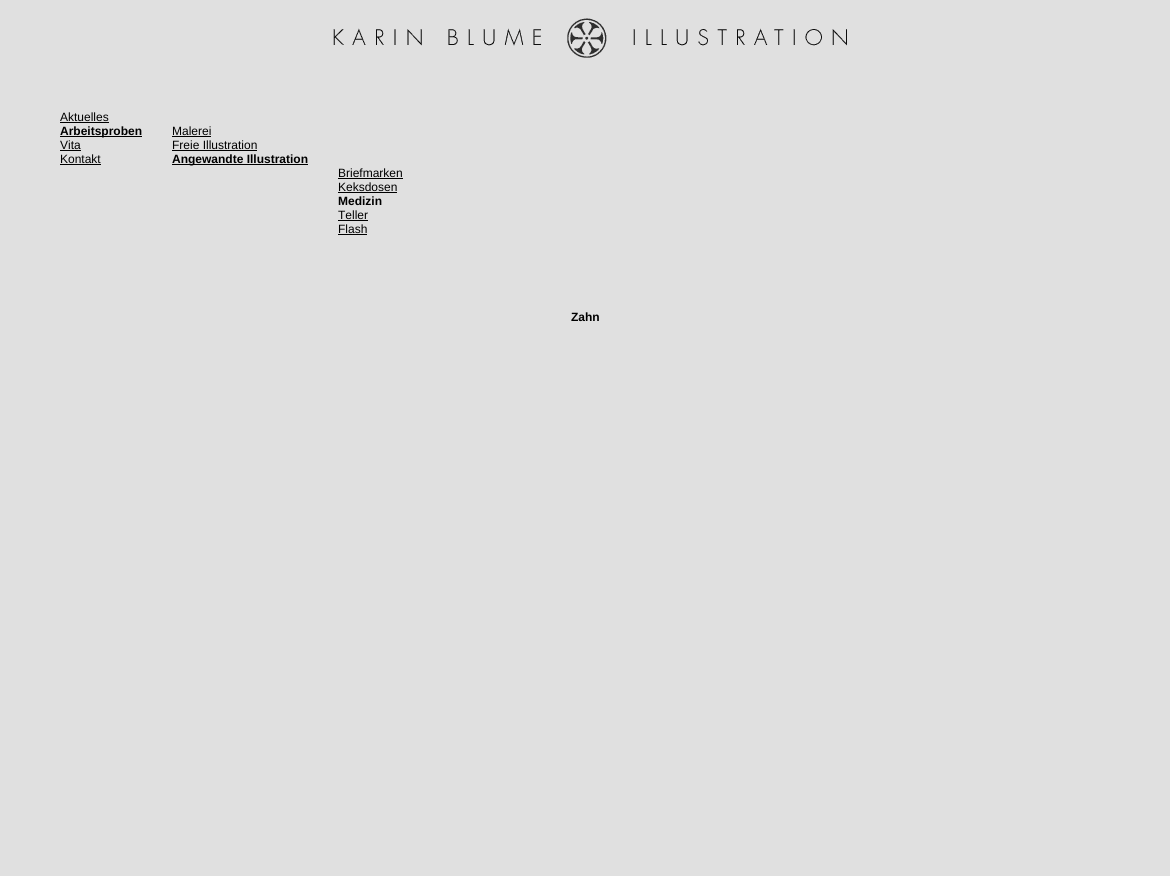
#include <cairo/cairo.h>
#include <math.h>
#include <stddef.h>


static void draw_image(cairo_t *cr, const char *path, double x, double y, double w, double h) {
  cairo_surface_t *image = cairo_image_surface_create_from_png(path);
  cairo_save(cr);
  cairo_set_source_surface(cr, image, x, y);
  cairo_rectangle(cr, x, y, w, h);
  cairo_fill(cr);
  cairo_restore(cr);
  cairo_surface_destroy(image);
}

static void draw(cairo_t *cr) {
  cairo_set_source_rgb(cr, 224 / 255.0, 224 / 255.0, 224 / 255.0);
  cairo_paint(cr);
  draw_image(cr, "images/1.png", 333, 18, 514, 40);
  cairo_set_source_rgb(cr, 0, 0, 0);
  cairo_rectangle(cr, 60, 122, 49, 1);
  cairo_fill(cr);
  cairo_rectangle(cr, 60, 136, 82, 1);
  cairo_fill(cr);
  cairo_rectangle(cr, 60, 150, 21, 1);
  cairo_fill(cr);
  cairo_rectangle(cr, 60, 164, 41, 1);
  cairo_fill(cr);
  cairo_rectangle(cr, 172, 136, 39, 1);
  cairo_fill(cr);
  cairo_rectangle(cr, 172, 150, 85, 1);
  cairo_fill(cr);
  cairo_rectangle(cr, 172, 164, 136, 1);
  cairo_fill(cr);
  cairo_rectangle(cr, 338, 178, 65, 1);
  cairo_fill(cr);
  cairo_rectangle(cr, 338, 192, 59, 1);
  cairo_fill(cr);
  cairo_rectangle(cr, 338, 220, 30, 1);
  cairo_fill(cr);
  cairo_rectangle(cr, 338, 234, 29, 1);
  cairo_fill(cr);
  cairo_select_font_face(cr, "Liberation Sans", CAIRO_FONT_SLANT_NORMAL, CAIRO_FONT_WEIGHT_NORMAL);
  cairo_set_font_size(cr, 12);
  cairo_move_to(cr, 60, 121);
  cairo_show_text(cr, "Aktuelles");
  cairo_select_font_face(cr, "Liberation Sans", CAIRO_FONT_SLANT_NORMAL, CAIRO_FONT_WEIGHT_BOLD);
  cairo_move_to(cr, 60, 135);
  cairo_show_text(cr, "Arbeitsproben");
  cairo_select_font_face(cr, "Liberation Sans", CAIRO_FONT_SLANT_NORMAL, CAIRO_FONT_WEIGHT_NORMAL);
  cairo_move_to(cr, 60, 149);
  cairo_show_text(cr, "Vita");
  cairo_move_to(cr, 60, 163);
  cairo_show_text(cr, "Kontakt");
  cairo_move_to(cr, 172, 135);
  cairo_show_text(cr, "Malerei");
  cairo_move_to(cr, 172, 149);
  cairo_show_text(cr, "Freie Illustration");
  cairo_select_font_face(cr, "Liberation Sans", CAIRO_FONT_SLANT_NORMAL, CAIRO_FONT_WEIGHT_BOLD);
  cairo_move_to(cr, 172, 163);
  cairo_show_text(cr, "Angewandte Illustration");
  cairo_select_font_face(cr, "Liberation Sans", CAIRO_FONT_SLANT_NORMAL, CAIRO_FONT_WEIGHT_NORMAL);
  cairo_move_to(cr, 338, 177);
  cairo_show_text(cr, "Briefmarken");
  cairo_move_to(cr, 338, 191);
  cairo_show_text(cr, "Keksdosen");
  cairo_select_font_face(cr, "Liberation Sans", CAIRO_FONT_SLANT_NORMAL, CAIRO_FONT_WEIGHT_BOLD);
  cairo_move_to(cr, 338, 205);
  cairo_show_text(cr, "Medizin");
  cairo_select_font_face(cr, "Liberation Sans", CAIRO_FONT_SLANT_NORMAL, CAIRO_FONT_WEIGHT_NORMAL);
  cairo_move_to(cr, 338, 219);
  cairo_show_text(cr, "Teller");
  cairo_move_to(cr, 338, 233);
  cairo_show_text(cr, "Flash");
  cairo_select_font_face(cr, "Liberation Sans", CAIRO_FONT_SLANT_NORMAL, CAIRO_FONT_WEIGHT_BOLD);
  cairo_move_to(cr, 571, 321);
  cairo_show_text(cr, "Zahn");
}

int main(void) {
  cairo_surface_t *surface = cairo_image_surface_create(CAIRO_FORMAT_RGB24, 1170, 876);
  cairo_t *cr = cairo_create(surface);
  cairo_font_options_t *options = cairo_font_options_create();
  cairo_font_options_set_hint_metrics(options, CAIRO_HINT_METRICS_OFF);
  cairo_font_options_set_hint_style(options, CAIRO_HINT_STYLE_NONE);
  cairo_set_font_options(cr, options);
  cairo_set_miter_limit(cr, 4);
  draw(cr);
  cairo_surface_write_to_png(surface, "out.png");
  cairo_font_options_destroy(options);
  cairo_destroy(cr);
  cairo_surface_destroy(surface);
  return 0;
}
